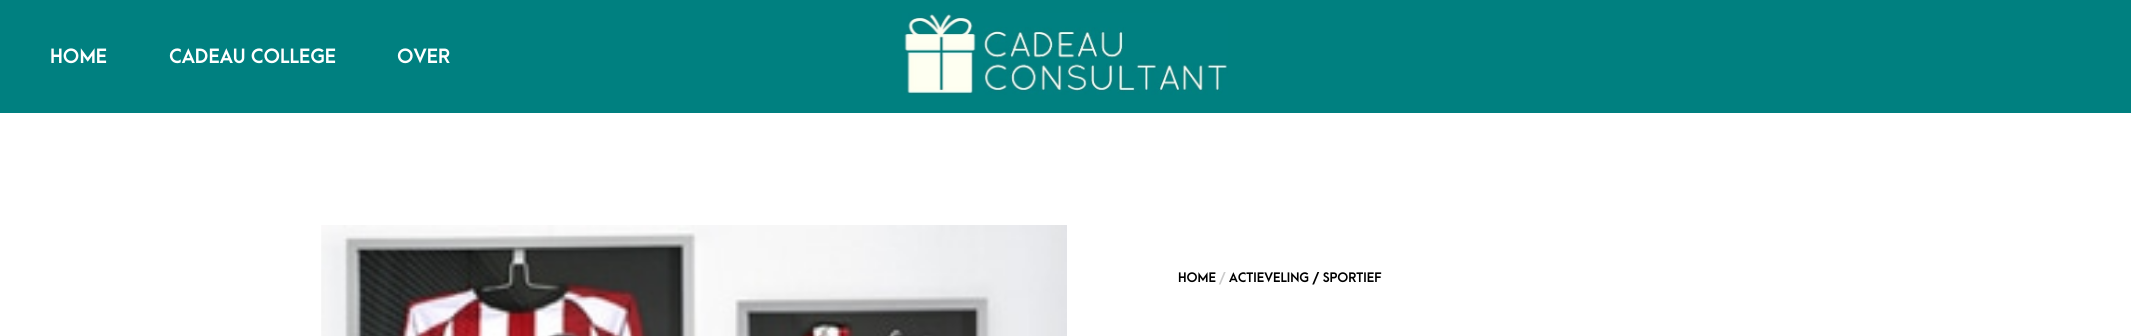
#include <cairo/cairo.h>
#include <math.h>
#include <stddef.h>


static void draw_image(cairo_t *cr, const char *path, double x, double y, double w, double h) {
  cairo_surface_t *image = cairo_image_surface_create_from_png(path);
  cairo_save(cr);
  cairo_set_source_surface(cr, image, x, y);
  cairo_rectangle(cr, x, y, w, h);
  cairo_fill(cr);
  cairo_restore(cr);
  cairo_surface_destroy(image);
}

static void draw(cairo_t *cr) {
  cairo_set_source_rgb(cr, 1, 1, 1);
  cairo_paint(cr);
  cairo_set_source_rgb(cr, 0, 128 / 255.0, 128 / 255.0);
  cairo_rectangle(cr, 0, 0, 2131, 113);
  cairo_fill(cr);
  draw_image(cr, "images/1.png", 901, 13, 327, 82);
  draw_image(cr, "images/2.png", 321, 225, 746, 111);
  cairo_select_font_face(cr, "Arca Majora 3", CAIRO_FONT_SLANT_NORMAL, CAIRO_FONT_WEIGHT_BOLD);
  cairo_set_font_size(cr, 18.75);
  cairo_set_source_rgb(cr, 1, 1, 1);
  cairo_move_to(cr, 50, 63);
  cairo_show_text(cr, "HOME");
  cairo_move_to(cr, 169, 63);
  cairo_show_text(cr, "CADEAU COLLEGE");
  cairo_move_to(cr, 397, 63);
  cairo_show_text(cr, "OVER");
  cairo_set_font_size(cr, 12.5);
  cairo_set_source_rgb(cr, 0, 0, 0);
  cairo_move_to(cr, 1178, 282);
  cairo_show_text(cr, "HOME");
  cairo_set_source_rgb(cr, 204 / 255.0, 204 / 255.0, 204 / 255.0);
  cairo_move_to(cr, 1219, 282);
  cairo_show_text(cr, "/");
  cairo_set_source_rgb(cr, 0, 0, 0);
  cairo_move_to(cr, 1229, 282);
  cairo_show_text(cr, "ACTIEVELING / SPORTIEF");
}

int main(void) {
  cairo_surface_t *surface = cairo_image_surface_create(CAIRO_FORMAT_RGB24, 2131, 336);
  cairo_t *cr = cairo_create(surface);
  cairo_font_options_t *options = cairo_font_options_create();
  cairo_font_options_set_hint_metrics(options, CAIRO_HINT_METRICS_OFF);
  cairo_font_options_set_hint_style(options, CAIRO_HINT_STYLE_NONE);
  cairo_set_font_options(cr, options);
  cairo_set_miter_limit(cr, 4);
  draw(cr);
  cairo_surface_write_to_png(surface, "out.png");
  cairo_font_options_destroy(options);
  cairo_destroy(cr);
  cairo_surface_destroy(surface);
  return 0;
}
